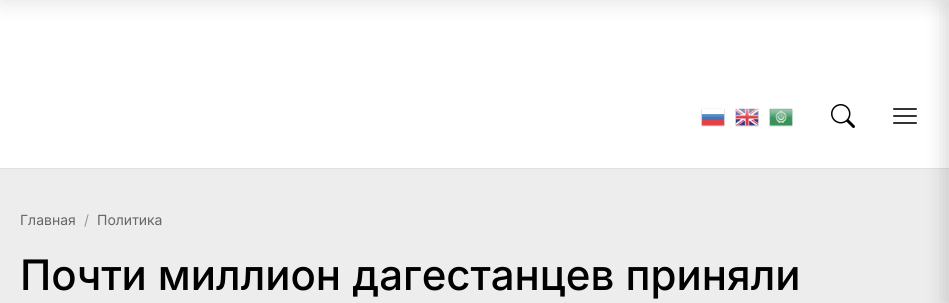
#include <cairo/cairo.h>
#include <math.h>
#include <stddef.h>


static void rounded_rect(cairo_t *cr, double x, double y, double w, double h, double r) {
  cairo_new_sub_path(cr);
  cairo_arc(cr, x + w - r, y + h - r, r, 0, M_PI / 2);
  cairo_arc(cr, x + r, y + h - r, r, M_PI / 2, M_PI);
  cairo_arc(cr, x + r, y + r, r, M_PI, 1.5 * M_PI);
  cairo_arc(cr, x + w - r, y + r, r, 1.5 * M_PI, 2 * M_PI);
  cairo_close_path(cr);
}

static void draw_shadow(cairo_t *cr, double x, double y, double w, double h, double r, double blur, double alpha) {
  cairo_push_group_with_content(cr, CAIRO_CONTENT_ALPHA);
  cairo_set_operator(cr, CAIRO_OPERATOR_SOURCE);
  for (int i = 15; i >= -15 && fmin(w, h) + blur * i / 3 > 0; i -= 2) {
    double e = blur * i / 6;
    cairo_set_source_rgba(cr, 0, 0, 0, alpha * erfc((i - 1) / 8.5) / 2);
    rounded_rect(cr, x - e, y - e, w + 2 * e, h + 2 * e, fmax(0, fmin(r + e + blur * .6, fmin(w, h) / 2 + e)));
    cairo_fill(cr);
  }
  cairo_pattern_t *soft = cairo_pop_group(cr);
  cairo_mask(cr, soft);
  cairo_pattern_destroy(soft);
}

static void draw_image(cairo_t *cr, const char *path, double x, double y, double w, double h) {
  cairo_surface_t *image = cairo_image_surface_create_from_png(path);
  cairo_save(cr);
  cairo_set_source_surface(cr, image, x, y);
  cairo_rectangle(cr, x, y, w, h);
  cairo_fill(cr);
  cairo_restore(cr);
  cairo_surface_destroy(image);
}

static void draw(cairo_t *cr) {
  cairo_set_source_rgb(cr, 1, 1, 1);
  cairo_paint(cr);
  cairo_set_source_rgb(cr, 224 / 255.0, 224 / 255.0, 224 / 255.0);
  cairo_rectangle(cr, 0, 168, 949, 1);
  cairo_fill(cr);
  cairo_set_source_rgb(cr, 51 / 255.0, 51 / 255.0, 51 / 255.0);
  rounded_rect(cr, 893, 108, 24, 2, 1);
  cairo_fill(cr);
  rounded_rect(cr, 893, 115, 24, 2, 1);
  cairo_fill(cr);
  rounded_rect(cr, 893, 122, 24, 2, 1);
  cairo_fill(cr);
  cairo_set_source_rgb(cr, 237 / 255.0, 237 / 255.0, 237 / 255.0);
  cairo_rectangle(cr, 0, 169, 949, 134);
  cairo_fill(cr);
  cairo_set_source_rgb(cr, 0, 0, 0);
  draw_shadow(cr, 944, 0, 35, 303, 0, 10, 0.15);
  draw_image(cr, "images/1.png", 701, 108, 24, 19);
  draw_image(cr, "images/2.png", 735, 108, 24, 19);
  draw_image(cr, "images/3.png", 769, 108, 24, 19);
  draw_image(cr, "images/4.png", 831, 104, 24, 24);
  draw_shadow(cr, 0, -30, 949, 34, 0, 10, 0.1);
  cairo_select_font_face(cr, "Inter", CAIRO_FONT_SLANT_NORMAL, CAIRO_FONT_WEIGHT_NORMAL);
  cairo_set_font_size(cr, 14);
  cairo_set_source_rgb(cr, 102 / 255.0, 102 / 255.0, 102 / 255.0);
  cairo_move_to(cr, 20, 225);
  cairo_show_text(cr, "Главная");
  cairo_set_source_rgb(cr, 153 / 255.0, 153 / 255.0, 153 / 255.0);
  cairo_move_to(cr, 84, 225);
  cairo_show_text(cr, "/");
  cairo_set_source_rgb(cr, 102 / 255.0, 102 / 255.0, 102 / 255.0);
  cairo_move_to(cr, 97, 225);
  cairo_show_text(cr, "Политика");
  cairo_select_font_face(cr, "Inter Medium", CAIRO_FONT_SLANT_NORMAL, CAIRO_FONT_WEIGHT_NORMAL);
  cairo_set_font_size(cr, 42);
  cairo_set_source_rgb(cr, 0, 0, 0);
  cairo_move_to(cr, 20, 290);
  cairo_show_text(cr, "Почти миллион дагестанцев приняли");
}

int main(void) {
  cairo_surface_t *surface = cairo_image_surface_create(CAIRO_FORMAT_RGB24, 949, 303);
  cairo_t *cr = cairo_create(surface);
  cairo_font_options_t *options = cairo_font_options_create();
  cairo_font_options_set_hint_metrics(options, CAIRO_HINT_METRICS_OFF);
  cairo_font_options_set_hint_style(options, CAIRO_HINT_STYLE_NONE);
  cairo_set_font_options(cr, options);
  cairo_set_miter_limit(cr, 4);
  draw(cr);
  cairo_surface_write_to_png(surface, "out.png");
  cairo_font_options_destroy(options);
  cairo_destroy(cr);
  cairo_surface_destroy(surface);
  return 0;
}
